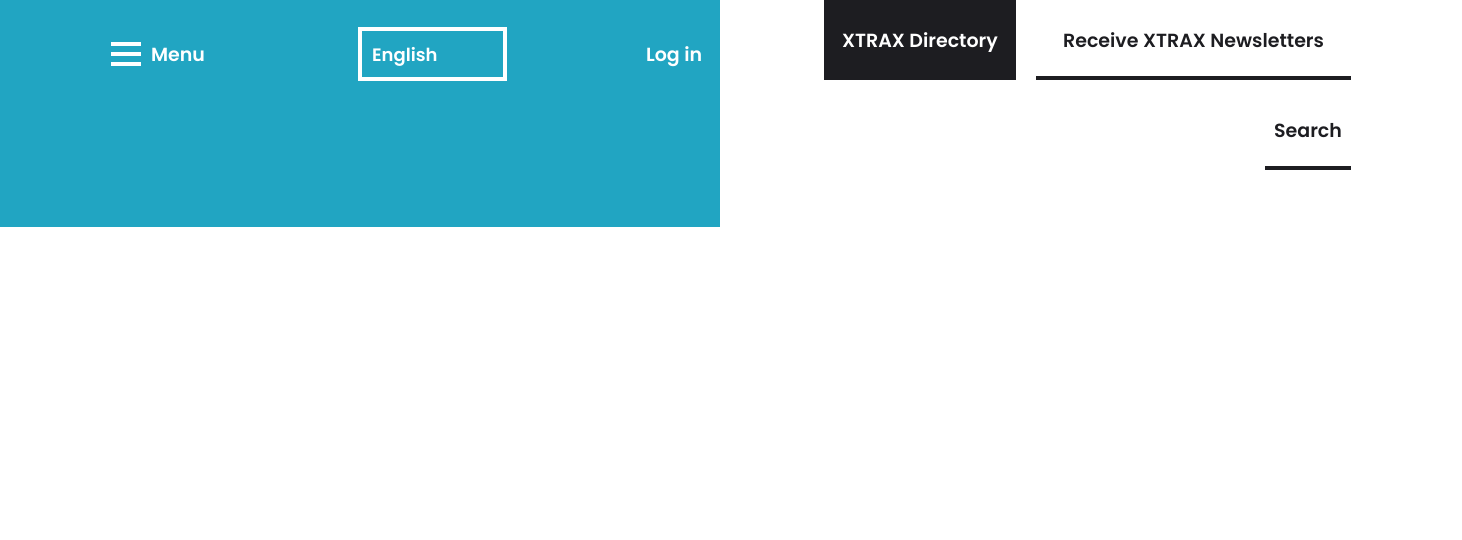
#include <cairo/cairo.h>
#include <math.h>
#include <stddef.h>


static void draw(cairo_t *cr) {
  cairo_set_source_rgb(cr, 1, 1, 1);
  cairo_paint(cr);
  cairo_set_source_rgb(cr, 33 / 255.0, 165 / 255.0, 194 / 255.0);
  cairo_rectangle(cr, 0, 0, 720, 227);
  cairo_fill(cr);
  cairo_set_source_rgb(cr, 1, 1, 1);
  cairo_rectangle(cr, 111, 42, 30, 4);
  cairo_fill(cr);
  cairo_rectangle(cr, 111, 52, 30, 4);
  cairo_fill(cr);
  cairo_rectangle(cr, 111, 62, 30, 4);
  cairo_fill(cr);
  cairo_rectangle(cr, 360, 29, 145, 50);
  cairo_set_line_width(cr, 4);
  cairo_stroke(cr);
  cairo_set_source_rgb(cr, 29 / 255.0, 29 / 255.0, 33 / 255.0);
  cairo_rectangle(cr, 824, 0, 192, 80);
  cairo_fill(cr);
  cairo_rectangle(cr, 1036, 76, 315, 4);
  cairo_fill(cr);
  cairo_rectangle(cr, 1265, 166, 86, 4);
  cairo_fill(cr);
  cairo_select_font_face(cr, "Poppins SemiBold", CAIRO_FONT_SLANT_NORMAL, CAIRO_FONT_WEIGHT_NORMAL);
  cairo_set_font_size(cr, 19);
  cairo_set_source_rgb(cr, 1, 1, 1);
  cairo_move_to(cr, 151, 61);
  cairo_show_text(cr, "Menu");
  cairo_set_font_size(cr, 18);
  cairo_move_to(cr, 372, 61);
  cairo_show_text(cr, "English");
  cairo_set_font_size(cr, 19);
  cairo_move_to(cr, 646, 61);
  cairo_show_text(cr, "Log in");
  cairo_move_to(cr, 842, 47);
  cairo_show_text(cr, "XTRAX Directory");
  cairo_set_source_rgb(cr, 29 / 255.0, 29 / 255.0, 33 / 255.0);
  cairo_move_to(cr, 1063, 47);
  cairo_show_text(cr, "Receive XTRAX Newsletters");
  cairo_move_to(cr, 1274, 137);
  cairo_show_text(cr, "Search");
}

int main(void) {
  cairo_surface_t *surface = cairo_image_surface_create(CAIRO_FORMAT_RGB24, 1462, 540);
  cairo_t *cr = cairo_create(surface);
  cairo_font_options_t *options = cairo_font_options_create();
  cairo_font_options_set_hint_metrics(options, CAIRO_HINT_METRICS_OFF);
  cairo_font_options_set_hint_style(options, CAIRO_HINT_STYLE_NONE);
  cairo_set_font_options(cr, options);
  cairo_set_miter_limit(cr, 4);
  draw(cr);
  cairo_surface_write_to_png(surface, "out.png");
  cairo_font_options_destroy(options);
  cairo_destroy(cr);
  cairo_surface_destroy(surface);
  return 0;
}
